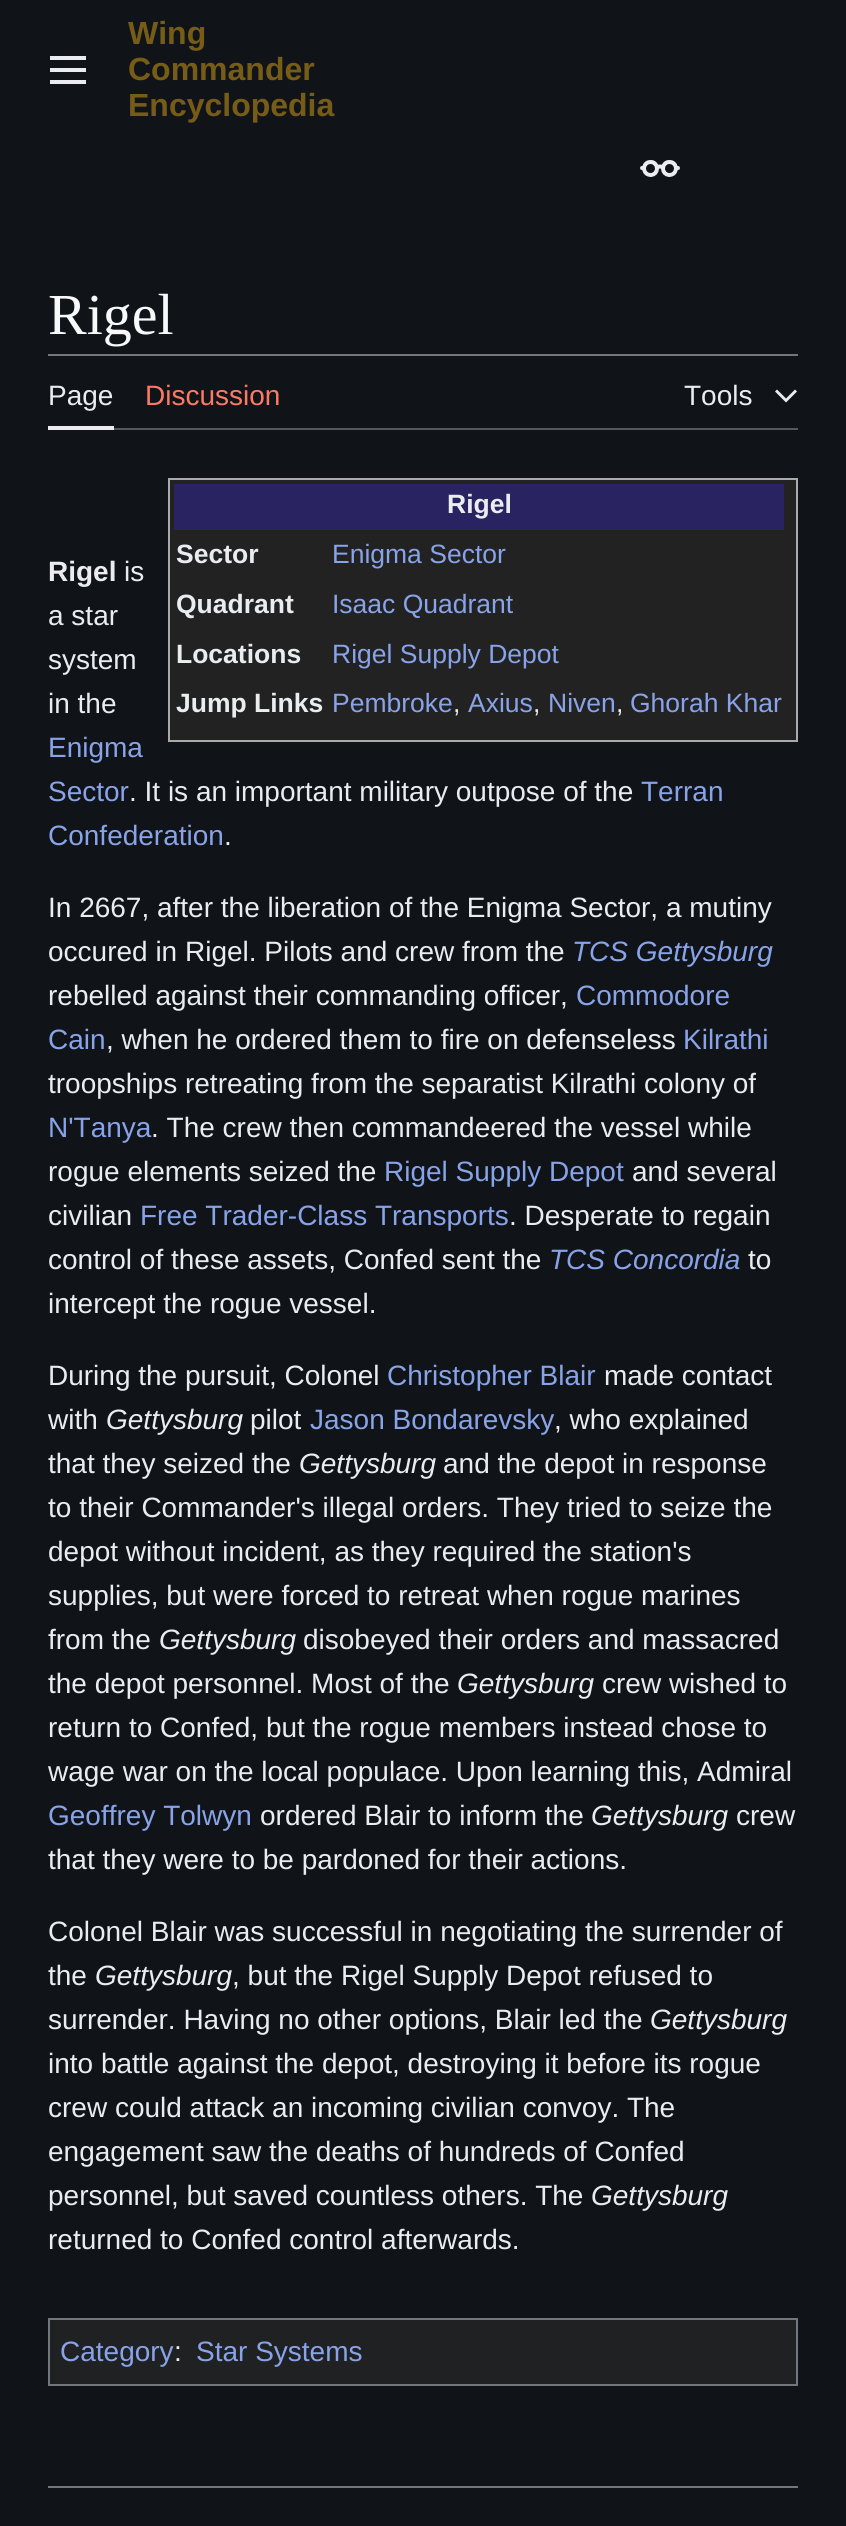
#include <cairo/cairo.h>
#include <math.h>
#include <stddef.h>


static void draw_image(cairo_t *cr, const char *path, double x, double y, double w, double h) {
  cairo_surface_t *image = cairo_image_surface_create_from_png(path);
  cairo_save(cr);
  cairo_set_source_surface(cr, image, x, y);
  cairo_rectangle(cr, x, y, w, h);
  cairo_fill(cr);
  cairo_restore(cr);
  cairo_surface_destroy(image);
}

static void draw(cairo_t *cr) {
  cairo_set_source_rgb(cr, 16 / 255.0, 20 / 255.0, 24 / 255.0);
  cairo_paint(cr);
  draw_image(cr, "images/1.png", 50, 56, 36, 28);
  draw_image(cr, "images/2.png", 640, 160, 40, 17);
  cairo_set_source_rgb(cr, 114 / 255.0, 119 / 255.0, 125 / 255.0);
  cairo_rectangle(cr, 48, 354, 750, 2);
  cairo_fill(cr);
  cairo_set_source_rgb(cr, 84 / 255.0, 89 / 255.0, 93 / 255.0);
  cairo_rectangle(cr, 114, 428, 684, 2);
  cairo_fill(cr);
  cairo_set_source_rgb(cr, 234 / 255.0, 236 / 255.0, 240 / 255.0);
  cairo_rectangle(cr, 48, 426, 66, 4);
  cairo_fill(cr);
  cairo_new_path(cr);
  cairo_move_to(cr, 795, 389.5);
  cairo_line_to(cr, 786, 398.5);
  cairo_line_to(cr, 777, 389.5);
  cairo_line_to(cr, 775, 391.5);
  cairo_line_to(cr, 786, 402.5);
  cairo_line_to(cr, 797, 391.5);
  cairo_close_path(cr);
  cairo_fill(cr);
  cairo_set_source_rgb(cr, 34 / 255.0, 34 / 255.0, 34 / 255.0);
  cairo_rectangle(cr, 169, 479, 628, 262);
  cairo_fill_preserve(cr);
  cairo_set_source_rgb(cr, 170 / 255.0, 170 / 255.0, 170 / 255.0);
  cairo_stroke(cr);
  cairo_set_source_rgb(cr, 41 / 255.0, 36 / 255.0, 97 / 255.0);
  cairo_rectangle(cr, 174, 484, 610, 46);
  cairo_fill(cr);
  cairo_set_source_rgb(cr, 32 / 255.0, 33 / 255.0, 34 / 255.0);
  cairo_rectangle(cr, 49, 2319, 748, 66);
  cairo_fill_preserve(cr);
  cairo_set_source_rgb(cr, 114 / 255.0, 119 / 255.0, 125 / 255.0);
  cairo_stroke(cr);
  cairo_rectangle(cr, 48, 2486, 750, 2);
  cairo_fill(cr);
  cairo_select_font_face(cr, "Liberation Sans", CAIRO_FONT_SLANT_NORMAL, CAIRO_FONT_WEIGHT_BOLD);
  cairo_set_font_size(cr, 32);
  cairo_set_source_rgb(cr, 119 / 255.0, 92 / 255.0, 23 / 255.0);
  cairo_move_to(cr, 128, 44);
  cairo_show_text(cr, "Wing");
  cairo_move_to(cr, 128, 80);
  cairo_show_text(cr, "Commander");
  cairo_move_to(cr, 128, 116);
  cairo_show_text(cr, "Encyclopedia");
  cairo_select_font_face(cr, "Liberation Serif", CAIRO_FONT_SLANT_NORMAL, CAIRO_FONT_WEIGHT_NORMAL);
  cairo_set_font_size(cr, 58);
  cairo_set_source_rgb(cr, 248 / 255.0, 249 / 255.0, 250 / 255.0);
  cairo_move_to(cr, 48, 334);
  cairo_show_text(cr, "Rigel");
  cairo_select_font_face(cr, "Liberation Sans", CAIRO_FONT_SLANT_NORMAL, CAIRO_FONT_WEIGHT_NORMAL);
  cairo_set_font_size(cr, 28);
  cairo_set_source_rgb(cr, 234 / 255.0, 236 / 255.0, 240 / 255.0);
  cairo_move_to(cr, 48, 405);
  cairo_show_text(cr, "Page");
  cairo_set_source_rgb(cr, 253 / 255.0, 120 / 255.0, 101 / 255.0);
  cairo_move_to(cr, 145, 405);
  cairo_show_text(cr, "Discussion");
  cairo_set_source_rgb(cr, 234 / 255.0, 236 / 255.0, 240 / 255.0);
  cairo_move_to(cr, 684, 405);
  cairo_show_text(cr, "Tools");
  cairo_select_font_face(cr, "Liberation Sans", CAIRO_FONT_SLANT_NORMAL, CAIRO_FONT_WEIGHT_BOLD);
  cairo_set_font_size(cr, 26.5);
  cairo_move_to(cr, 447, 513);
  cairo_show_text(cr, "Rigel");
  cairo_move_to(cr, 176, 563);
  cairo_show_text(cr, "Sector");
  cairo_select_font_face(cr, "Liberation Sans", CAIRO_FONT_SLANT_NORMAL, CAIRO_FONT_WEIGHT_NORMAL);
  cairo_set_source_rgb(cr, 136 / 255.0, 163 / 255.0, 232 / 255.0);
  cairo_move_to(cr, 332, 563);
  cairo_show_text(cr, "Enigma Sector");
  cairo_select_font_face(cr, "Liberation Sans", CAIRO_FONT_SLANT_NORMAL, CAIRO_FONT_WEIGHT_BOLD);
  cairo_set_source_rgb(cr, 234 / 255.0, 236 / 255.0, 240 / 255.0);
  cairo_move_to(cr, 176, 613);
  cairo_show_text(cr, "Quadrant");
  cairo_select_font_face(cr, "Liberation Sans", CAIRO_FONT_SLANT_NORMAL, CAIRO_FONT_WEIGHT_NORMAL);
  cairo_set_source_rgb(cr, 136 / 255.0, 163 / 255.0, 232 / 255.0);
  cairo_move_to(cr, 332, 613);
  cairo_show_text(cr, "Isaac Quadrant");
  cairo_select_font_face(cr, "Liberation Sans", CAIRO_FONT_SLANT_NORMAL, CAIRO_FONT_WEIGHT_BOLD);
  cairo_set_source_rgb(cr, 234 / 255.0, 236 / 255.0, 240 / 255.0);
  cairo_move_to(cr, 176, 663);
  cairo_show_text(cr, "Locations");
  cairo_select_font_face(cr, "Liberation Sans", CAIRO_FONT_SLANT_NORMAL, CAIRO_FONT_WEIGHT_NORMAL);
  cairo_set_source_rgb(cr, 136 / 255.0, 163 / 255.0, 232 / 255.0);
  cairo_move_to(cr, 332, 663);
  cairo_show_text(cr, "Rigel Supply Depot");
  cairo_select_font_face(cr, "Liberation Sans", CAIRO_FONT_SLANT_NORMAL, CAIRO_FONT_WEIGHT_BOLD);
  cairo_set_source_rgb(cr, 234 / 255.0, 236 / 255.0, 240 / 255.0);
  cairo_move_to(cr, 176, 712);
  cairo_show_text(cr, "Jump Links");
  cairo_select_font_face(cr, "Liberation Sans", CAIRO_FONT_SLANT_NORMAL, CAIRO_FONT_WEIGHT_NORMAL);
  cairo_set_source_rgb(cr, 136 / 255.0, 163 / 255.0, 232 / 255.0);
  cairo_move_to(cr, 332, 712);
  cairo_show_text(cr, "Pembroke");
  cairo_set_source_rgb(cr, 234 / 255.0, 236 / 255.0, 240 / 255.0);
  cairo_move_to(cr, 453, 712);
  cairo_show_text(cr, ",");
  cairo_set_source_rgb(cr, 136 / 255.0, 163 / 255.0, 232 / 255.0);
  cairo_move_to(cr, 468, 712);
  cairo_show_text(cr, "Axius");
  cairo_set_source_rgb(cr, 234 / 255.0, 236 / 255.0, 240 / 255.0);
  cairo_move_to(cr, 533, 712);
  cairo_show_text(cr, ",");
  cairo_set_source_rgb(cr, 136 / 255.0, 163 / 255.0, 232 / 255.0);
  cairo_move_to(cr, 548, 712);
  cairo_show_text(cr, "Niven");
  cairo_set_source_rgb(cr, 234 / 255.0, 236 / 255.0, 240 / 255.0);
  cairo_move_to(cr, 616, 712);
  cairo_show_text(cr, ",");
  cairo_set_source_rgb(cr, 136 / 255.0, 163 / 255.0, 232 / 255.0);
  cairo_move_to(cr, 630, 712);
  cairo_show_text(cr, "Ghorah Khar");
  cairo_select_font_face(cr, "Liberation Sans", CAIRO_FONT_SLANT_NORMAL, CAIRO_FONT_WEIGHT_BOLD);
  cairo_set_font_size(cr, 28);
  cairo_set_source_rgb(cr, 234 / 255.0, 236 / 255.0, 240 / 255.0);
  cairo_move_to(cr, 48, 581);
  cairo_show_text(cr, "Rigel");
  cairo_select_font_face(cr, "Liberation Sans", CAIRO_FONT_SLANT_NORMAL, CAIRO_FONT_WEIGHT_NORMAL);
  cairo_move_to(cr, 124, 581);
  cairo_show_text(cr, "is");
  cairo_move_to(cr, 48, 625);
  cairo_show_text(cr, "a star");
  cairo_move_to(cr, 48, 669);
  cairo_show_text(cr, "system");
  cairo_move_to(cr, 48, 713);
  cairo_show_text(cr, "in the");
  cairo_set_source_rgb(cr, 136 / 255.0, 163 / 255.0, 232 / 255.0);
  cairo_move_to(cr, 48, 757);
  cairo_show_text(cr, "Enigma");
  cairo_move_to(cr, 48, 801);
  cairo_show_text(cr, "Sector");
  cairo_set_source_rgb(cr, 234 / 255.0, 236 / 255.0, 240 / 255.0);
  cairo_move_to(cr, 129, 801);
  cairo_show_text(cr, ". It is an important military outpose of the");
  cairo_set_source_rgb(cr, 136 / 255.0, 163 / 255.0, 232 / 255.0);
  cairo_move_to(cr, 641, 801);
  cairo_show_text(cr, "Terran");
  cairo_move_to(cr, 48, 845);
  cairo_show_text(cr, "Confederation");
  cairo_set_source_rgb(cr, 234 / 255.0, 236 / 255.0, 240 / 255.0);
  cairo_move_to(cr, 224, 845);
  cairo_show_text(cr, ".");
  cairo_move_to(cr, 48, 917);
  cairo_show_text(cr, "In 2667, after the liberation of the Enigma Sector, a mutiny");
  cairo_move_to(cr, 48, 961);
  cairo_show_text(cr, "occured in Rigel. Pilots and crew from the");
  cairo_select_font_face(cr, "Liberation Sans", CAIRO_FONT_SLANT_ITALIC, CAIRO_FONT_WEIGHT_NORMAL);
  cairo_set_source_rgb(cr, 136 / 255.0, 163 / 255.0, 232 / 255.0);
  cairo_move_to(cr, 572, 961);
  cairo_show_text(cr, "TCS Gettysburg");
  cairo_select_font_face(cr, "Liberation Sans", CAIRO_FONT_SLANT_NORMAL, CAIRO_FONT_WEIGHT_NORMAL);
  cairo_set_source_rgb(cr, 234 / 255.0, 236 / 255.0, 240 / 255.0);
  cairo_move_to(cr, 48, 1005);
  cairo_show_text(cr, "rebelled against their commanding officer,");
  cairo_set_source_rgb(cr, 136 / 255.0, 163 / 255.0, 232 / 255.0);
  cairo_move_to(cr, 576, 1005);
  cairo_show_text(cr, "Commodore");
  cairo_move_to(cr, 48, 1049);
  cairo_show_text(cr, "Cain");
  cairo_set_source_rgb(cr, 234 / 255.0, 236 / 255.0, 240 / 255.0);
  cairo_move_to(cr, 106, 1049);
  cairo_show_text(cr, ", when he ordered them to fire on defenseless");
  cairo_set_source_rgb(cr, 136 / 255.0, 163 / 255.0, 232 / 255.0);
  cairo_move_to(cr, 683, 1049);
  cairo_show_text(cr, "Kilrathi");
  cairo_set_source_rgb(cr, 234 / 255.0, 236 / 255.0, 240 / 255.0);
  cairo_move_to(cr, 48, 1093);
  cairo_show_text(cr, "troopships retreating from the separatist Kilrathi colony of");
  cairo_set_source_rgb(cr, 136 / 255.0, 163 / 255.0, 232 / 255.0);
  cairo_move_to(cr, 48, 1137);
  cairo_show_text(cr, "N'Tanya");
  cairo_set_source_rgb(cr, 234 / 255.0, 236 / 255.0, 240 / 255.0);
  cairo_move_to(cr, 151, 1137);
  cairo_show_text(cr, ". The crew then commandeered the vessel while");
  cairo_move_to(cr, 48, 1181);
  cairo_show_text(cr, "rogue elements seized the");
  cairo_set_source_rgb(cr, 136 / 255.0, 163 / 255.0, 232 / 255.0);
  cairo_move_to(cr, 384, 1181);
  cairo_show_text(cr, "Rigel Supply Depot");
  cairo_set_source_rgb(cr, 234 / 255.0, 236 / 255.0, 240 / 255.0);
  cairo_move_to(cr, 632, 1181);
  cairo_show_text(cr, "and several");
  cairo_move_to(cr, 48, 1225);
  cairo_show_text(cr, "civilian");
  cairo_set_source_rgb(cr, 136 / 255.0, 163 / 255.0, 232 / 255.0);
  cairo_move_to(cr, 140, 1225);
  cairo_show_text(cr, "Free Trader-Class Transports");
  cairo_set_source_rgb(cr, 234 / 255.0, 236 / 255.0, 240 / 255.0);
  cairo_move_to(cr, 509, 1225);
  cairo_show_text(cr, ". Desperate to regain");
  cairo_move_to(cr, 48, 1269);
  cairo_show_text(cr, "control of these assets, Confed sent the");
  cairo_select_font_face(cr, "Liberation Sans", CAIRO_FONT_SLANT_ITALIC, CAIRO_FONT_WEIGHT_NORMAL);
  cairo_set_source_rgb(cr, 136 / 255.0, 163 / 255.0, 232 / 255.0);
  cairo_move_to(cr, 549, 1269);
  cairo_show_text(cr, "TCS Concordia");
  cairo_select_font_face(cr, "Liberation Sans", CAIRO_FONT_SLANT_NORMAL, CAIRO_FONT_WEIGHT_NORMAL);
  cairo_set_source_rgb(cr, 234 / 255.0, 236 / 255.0, 240 / 255.0);
  cairo_move_to(cr, 748, 1269);
  cairo_show_text(cr, "to");
  cairo_move_to(cr, 48, 1313);
  cairo_show_text(cr, "intercept the rogue vessel.");
  cairo_move_to(cr, 48, 1385);
  cairo_show_text(cr, "During the pursuit, Colonel");
  cairo_set_source_rgb(cr, 136 / 255.0, 163 / 255.0, 232 / 255.0);
  cairo_move_to(cr, 387, 1385);
  cairo_show_text(cr, "Christopher Blair");
  cairo_set_source_rgb(cr, 234 / 255.0, 236 / 255.0, 240 / 255.0);
  cairo_move_to(cr, 604, 1385);
  cairo_show_text(cr, "made contact");
  cairo_move_to(cr, 48, 1429);
  cairo_show_text(cr, "with");
  cairo_select_font_face(cr, "Liberation Sans", CAIRO_FONT_SLANT_ITALIC, CAIRO_FONT_WEIGHT_NORMAL);
  cairo_move_to(cr, 106, 1429);
  cairo_show_text(cr, "Gettysburg");
  cairo_select_font_face(cr, "Liberation Sans", CAIRO_FONT_SLANT_NORMAL, CAIRO_FONT_WEIGHT_NORMAL);
  cairo_move_to(cr, 250, 1429);
  cairo_show_text(cr, "pilot");
  cairo_set_source_rgb(cr, 136 / 255.0, 163 / 255.0, 232 / 255.0);
  cairo_move_to(cr, 310, 1429);
  cairo_show_text(cr, "Jason Bondarevsky");
  cairo_set_source_rgb(cr, 234 / 255.0, 236 / 255.0, 240 / 255.0);
  cairo_move_to(cr, 554, 1429);
  cairo_show_text(cr, ", who explained");
  cairo_move_to(cr, 48, 1473);
  cairo_show_text(cr, "that they seized the");
  cairo_select_font_face(cr, "Liberation Sans", CAIRO_FONT_SLANT_ITALIC, CAIRO_FONT_WEIGHT_NORMAL);
  cairo_move_to(cr, 299, 1473);
  cairo_show_text(cr, "Gettysburg");
  cairo_select_font_face(cr, "Liberation Sans", CAIRO_FONT_SLANT_NORMAL, CAIRO_FONT_WEIGHT_NORMAL);
  cairo_move_to(cr, 443, 1473);
  cairo_show_text(cr, "and the depot in response");
  cairo_move_to(cr, 48, 1517);
  cairo_show_text(cr, "to their Commander's illegal orders. They tried to seize the");
  cairo_move_to(cr, 48, 1561);
  cairo_show_text(cr, "depot without incident, as they required the station's");
  cairo_move_to(cr, 48, 1605);
  cairo_show_text(cr, "supplies, but were forced to retreat when rogue marines");
  cairo_move_to(cr, 48, 1649);
  cairo_show_text(cr, "from the");
  cairo_select_font_face(cr, "Liberation Sans", CAIRO_FONT_SLANT_ITALIC, CAIRO_FONT_WEIGHT_NORMAL);
  cairo_move_to(cr, 159, 1649);
  cairo_show_text(cr, "Gettysburg");
  cairo_select_font_face(cr, "Liberation Sans", CAIRO_FONT_SLANT_NORMAL, CAIRO_FONT_WEIGHT_NORMAL);
  cairo_move_to(cr, 303, 1649);
  cairo_show_text(cr, "disobeyed their orders and massacred");
  cairo_move_to(cr, 48, 1693);
  cairo_show_text(cr, "the depot personnel. Most of the");
  cairo_select_font_face(cr, "Liberation Sans", CAIRO_FONT_SLANT_ITALIC, CAIRO_FONT_WEIGHT_NORMAL);
  cairo_move_to(cr, 457, 1693);
  cairo_show_text(cr, "Gettysburg");
  cairo_select_font_face(cr, "Liberation Sans", CAIRO_FONT_SLANT_NORMAL, CAIRO_FONT_WEIGHT_NORMAL);
  cairo_move_to(cr, 602, 1693);
  cairo_show_text(cr, "crew wished to");
  cairo_move_to(cr, 48, 1737);
  cairo_show_text(cr, "return to Confed, but the rogue members instead chose to");
  cairo_move_to(cr, 48, 1781);
  cairo_show_text(cr, "wage war on the local populace. Upon learning this, Admiral");
  cairo_set_source_rgb(cr, 136 / 255.0, 163 / 255.0, 232 / 255.0);
  cairo_move_to(cr, 48, 1825);
  cairo_show_text(cr, "Geoffrey Tolwyn");
  cairo_set_source_rgb(cr, 234 / 255.0, 236 / 255.0, 240 / 255.0);
  cairo_move_to(cr, 260, 1825);
  cairo_show_text(cr, "ordered Blair to inform the");
  cairo_select_font_face(cr, "Liberation Sans", CAIRO_FONT_SLANT_ITALIC, CAIRO_FONT_WEIGHT_NORMAL);
  cairo_move_to(cr, 591, 1825);
  cairo_show_text(cr, "Gettysburg");
  cairo_select_font_face(cr, "Liberation Sans", CAIRO_FONT_SLANT_NORMAL, CAIRO_FONT_WEIGHT_NORMAL);
  cairo_move_to(cr, 736, 1825);
  cairo_show_text(cr, "crew");
  cairo_move_to(cr, 48, 1869);
  cairo_show_text(cr, "that they were to be pardoned for their actions.");
  cairo_move_to(cr, 48, 1941);
  cairo_show_text(cr, "Colonel Blair was successful in negotiating the surrender of");
  cairo_move_to(cr, 48, 1985);
  cairo_show_text(cr, "the");
  cairo_select_font_face(cr, "Liberation Sans", CAIRO_FONT_SLANT_ITALIC, CAIRO_FONT_WEIGHT_NORMAL);
  cairo_move_to(cr, 95, 1985);
  cairo_show_text(cr, "Gettysburg");
  cairo_select_font_face(cr, "Liberation Sans", CAIRO_FONT_SLANT_NORMAL, CAIRO_FONT_WEIGHT_NORMAL);
  cairo_move_to(cr, 232, 1985);
  cairo_show_text(cr, ", but the Rigel Supply Depot refused to");
  cairo_move_to(cr, 48, 2029);
  cairo_show_text(cr, "surrender. Having no other options, Blair led the");
  cairo_select_font_face(cr, "Liberation Sans", CAIRO_FONT_SLANT_ITALIC, CAIRO_FONT_WEIGHT_NORMAL);
  cairo_move_to(cr, 650, 2029);
  cairo_show_text(cr, "Gettysburg");
  cairo_select_font_face(cr, "Liberation Sans", CAIRO_FONT_SLANT_NORMAL, CAIRO_FONT_WEIGHT_NORMAL);
  cairo_move_to(cr, 48, 2073);
  cairo_show_text(cr, "into battle against the depot, destroying it before its rogue");
  cairo_move_to(cr, 48, 2117);
  cairo_show_text(cr, "crew could attack an incoming civilian convoy. The");
  cairo_move_to(cr, 48, 2161);
  cairo_show_text(cr, "engagement saw the deaths of hundreds of Confed");
  cairo_move_to(cr, 48, 2205);
  cairo_show_text(cr, "personnel, but saved countless others. The");
  cairo_select_font_face(cr, "Liberation Sans", CAIRO_FONT_SLANT_ITALIC, CAIRO_FONT_WEIGHT_NORMAL);
  cairo_move_to(cr, 591, 2205);
  cairo_show_text(cr, "Gettysburg");
  cairo_select_font_face(cr, "Liberation Sans", CAIRO_FONT_SLANT_NORMAL, CAIRO_FONT_WEIGHT_NORMAL);
  cairo_move_to(cr, 48, 2249);
  cairo_show_text(cr, "returned to Confed control afterwards.");
  cairo_set_source_rgb(cr, 136 / 255.0, 163 / 255.0, 232 / 255.0);
  cairo_move_to(cr, 60, 2361);
  cairo_show_text(cr, "Category");
  cairo_set_source_rgb(cr, 234 / 255.0, 236 / 255.0, 240 / 255.0);
  cairo_move_to(cr, 174, 2361);
  cairo_show_text(cr, ":");
  cairo_set_source_rgb(cr, 136 / 255.0, 163 / 255.0, 232 / 255.0);
  cairo_move_to(cr, 196, 2361);
  cairo_show_text(cr, "Star Systems");
}

int main(void) {
  cairo_surface_t *surface = cairo_image_surface_create(CAIRO_FORMAT_RGB24, 846, 2526);
  cairo_t *cr = cairo_create(surface);
  cairo_font_options_t *options = cairo_font_options_create();
  cairo_font_options_set_hint_metrics(options, CAIRO_HINT_METRICS_OFF);
  cairo_font_options_set_hint_style(options, CAIRO_HINT_STYLE_NONE);
  cairo_set_font_options(cr, options);
  cairo_set_miter_limit(cr, 4);
  draw(cr);
  cairo_surface_write_to_png(surface, "out.png");
  cairo_font_options_destroy(options);
  cairo_destroy(cr);
  cairo_surface_destroy(surface);
  return 0;
}
